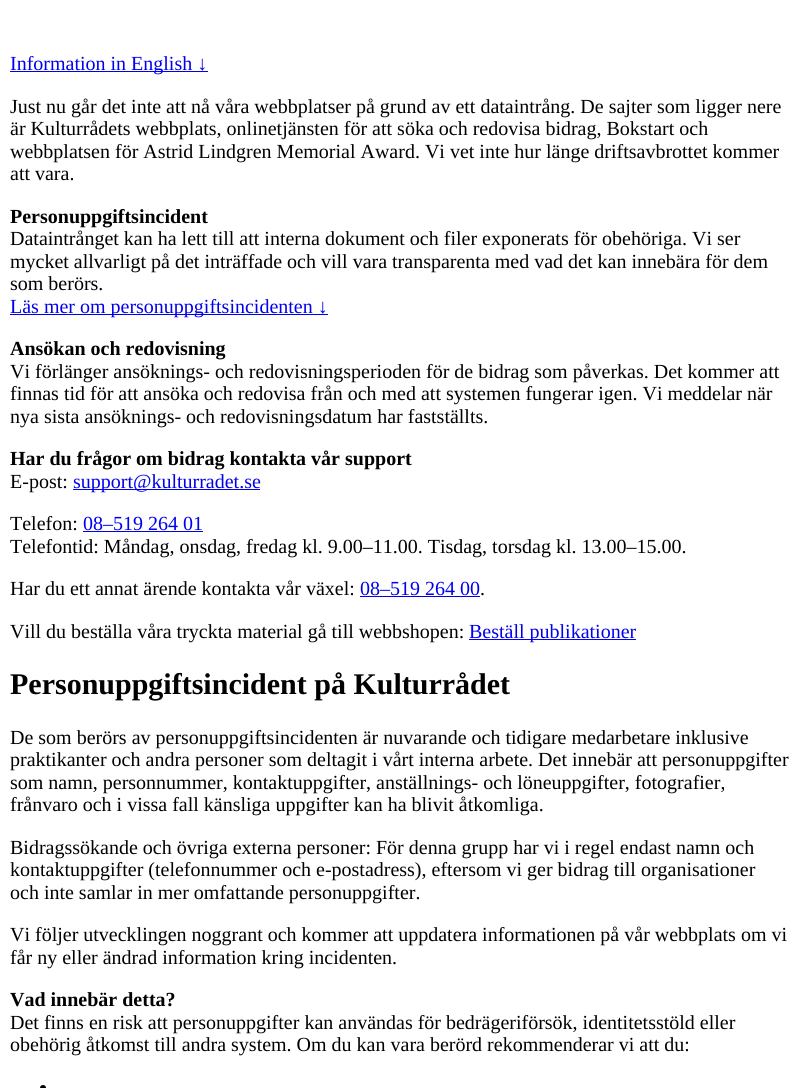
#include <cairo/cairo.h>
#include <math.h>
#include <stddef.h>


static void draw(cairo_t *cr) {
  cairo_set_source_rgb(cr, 1, 1, 1);
  cairo_paint(cr);
  cairo_set_source_rgb(cr, 0, 0, 238 / 255.0);
  cairo_rectangle(cr, 10, 71, 198, 1);
  cairo_fill(cr);
  cairo_rectangle(cr, 10, 314, 318, 1);
  cairo_fill(cr);
  cairo_rectangle(cr, 73, 489, 187, 1);
  cairo_fill(cr);
  cairo_rectangle(cr, 83, 531, 120, 1);
  cairo_fill(cr);
  cairo_rectangle(cr, 360, 596, 120, 1);
  cairo_fill(cr);
  cairo_rectangle(cr, 469, 639, 167, 1);
  cairo_fill(cr);
  cairo_set_source_rgb(cr, 0, 0, 0);
  cairo_arc(cr, 43, 1088, 3, 0, 2 * M_PI);
  cairo_fill(cr);
  cairo_select_font_face(cr, "Liberation Serif", CAIRO_FONT_SLANT_NORMAL, CAIRO_FONT_WEIGHT_NORMAL);
  cairo_set_font_size(cr, 20);
  cairo_set_source_rgb(cr, 0, 0, 238 / 255.0);
  cairo_move_to(cr, 10, 70);
  cairo_show_text(cr, "Information in English ↓");
  cairo_set_source_rgb(cr, 0, 0, 0);
  cairo_move_to(cr, 10, 113);
  cairo_show_text(cr, "Just nu går det inte att nå våra webbplatser på grund av ett dataintrång. De sajter som ligger nere");
  cairo_move_to(cr, 10, 135);
  cairo_show_text(cr, "är Kulturrådets webbplats, onlinetjänsten för att söka och redovisa bidrag, Bokstart och");
  cairo_move_to(cr, 10, 158);
  cairo_show_text(cr, "webbplatsen för Astrid Lindgren Memorial Award. Vi vet inte hur länge driftsavbrottet kommer");
  cairo_move_to(cr, 10, 180);
  cairo_show_text(cr, "att vara.");
  cairo_select_font_face(cr, "Liberation Serif", CAIRO_FONT_SLANT_NORMAL, CAIRO_FONT_WEIGHT_BOLD);
  cairo_move_to(cr, 10, 223);
  cairo_show_text(cr, "Personuppgiftsincident");
  cairo_select_font_face(cr, "Liberation Serif", CAIRO_FONT_SLANT_NORMAL, CAIRO_FONT_WEIGHT_NORMAL);
  cairo_move_to(cr, 10, 245);
  cairo_show_text(cr, "Dataintrånget kan ha lett till att interna dokument och filer exponerats för obehöriga. Vi ser");
  cairo_move_to(cr, 10, 268);
  cairo_show_text(cr, "mycket allvarligt på det inträffade och vill vara transparenta med vad det kan innebära för dem");
  cairo_move_to(cr, 10, 290);
  cairo_show_text(cr, "som berörs.");
  cairo_set_source_rgb(cr, 0, 0, 238 / 255.0);
  cairo_move_to(cr, 10, 313);
  cairo_show_text(cr, "Läs mer om personuppgiftsincidenten ↓");
  cairo_select_font_face(cr, "Liberation Serif", CAIRO_FONT_SLANT_NORMAL, CAIRO_FONT_WEIGHT_BOLD);
  cairo_set_source_rgb(cr, 0, 0, 0);
  cairo_move_to(cr, 10, 355);
  cairo_show_text(cr, "Ansökan och redovisning");
  cairo_select_font_face(cr, "Liberation Serif", CAIRO_FONT_SLANT_NORMAL, CAIRO_FONT_WEIGHT_NORMAL);
  cairo_move_to(cr, 10, 378);
  cairo_show_text(cr, "Vi förlänger ansöknings- och redovisningsperioden för de bidrag som påverkas. Det kommer att");
  cairo_move_to(cr, 10, 400);
  cairo_show_text(cr, "finnas tid för att ansöka och redovisa från och med att systemen fungerar igen. Vi meddelar när");
  cairo_move_to(cr, 10, 423);
  cairo_show_text(cr, "nya sista ansöknings- och redovisningsdatum har fastställts.");
  cairo_select_font_face(cr, "Liberation Serif", CAIRO_FONT_SLANT_NORMAL, CAIRO_FONT_WEIGHT_BOLD);
  cairo_move_to(cr, 10, 465);
  cairo_show_text(cr, "Har du frågor om bidrag kontakta vår support");
  cairo_select_font_face(cr, "Liberation Serif", CAIRO_FONT_SLANT_NORMAL, CAIRO_FONT_WEIGHT_NORMAL);
  cairo_move_to(cr, 10, 488);
  cairo_show_text(cr, "E-post:");
  cairo_set_source_rgb(cr, 0, 0, 238 / 255.0);
  cairo_move_to(cr, 73, 488);
  cairo_show_text(cr, "support@kulturradet.se");
  cairo_set_source_rgb(cr, 0, 0, 0);
  cairo_move_to(cr, 10, 530);
  cairo_show_text(cr, "Telefon:");
  cairo_set_source_rgb(cr, 0, 0, 238 / 255.0);
  cairo_move_to(cr, 83, 530);
  cairo_show_text(cr, "08–519 264 01");
  cairo_set_source_rgb(cr, 0, 0, 0);
  cairo_move_to(cr, 10, 553);
  cairo_show_text(cr, "Telefontid: Måndag, onsdag, fredag kl. 9.00–11.00. Tisdag, torsdag kl. 13.00–15.00.");
  cairo_move_to(cr, 10, 595);
  cairo_show_text(cr, "Har du ett annat ärende kontakta vår växel:");
  cairo_set_source_rgb(cr, 0, 0, 238 / 255.0);
  cairo_move_to(cr, 360, 595);
  cairo_show_text(cr, "08–519 264 00");
  cairo_set_source_rgb(cr, 0, 0, 0);
  cairo_move_to(cr, 480, 595);
  cairo_show_text(cr, ".");
  cairo_move_to(cr, 10, 638);
  cairo_show_text(cr, "Vill du beställa våra tryckta material gå till webbshopen:");
  cairo_set_source_rgb(cr, 0, 0, 238 / 255.0);
  cairo_move_to(cr, 469, 638);
  cairo_show_text(cr, "Beställ publikationer");
  cairo_select_font_face(cr, "Liberation Serif", CAIRO_FONT_SLANT_NORMAL, CAIRO_FONT_WEIGHT_BOLD);
  cairo_set_font_size(cr, 30);
  cairo_set_source_rgb(cr, 0, 0, 0);
  cairo_move_to(cr, 10, 694);
  cairo_show_text(cr, "Personuppgiftsincident på Kulturrådet");
  cairo_select_font_face(cr, "Liberation Serif", CAIRO_FONT_SLANT_NORMAL, CAIRO_FONT_WEIGHT_NORMAL);
  cairo_set_font_size(cr, 20);
  cairo_move_to(cr, 10, 744);
  cairo_show_text(cr, "De som berörs av personuppgiftsincidenten är nuvarande och tidigare medarbetare inklusive");
  cairo_move_to(cr, 10, 766);
  cairo_show_text(cr, "praktikanter och andra personer som deltagit i vårt interna arbete. Det innebär att personuppgifter");
  cairo_move_to(cr, 10, 789);
  cairo_show_text(cr, "som namn, personnummer, kontaktuppgifter, anställnings- och löneuppgifter, fotografier,");
  cairo_move_to(cr, 10, 811);
  cairo_show_text(cr, "frånvaro och i vissa fall känsliga uppgifter kan ha blivit åtkomliga.");
  cairo_move_to(cr, 10, 854);
  cairo_show_text(cr, "Bidragssökande och övriga externa personer: För denna grupp har vi i regel endast namn och");
  cairo_move_to(cr, 10, 876);
  cairo_show_text(cr, "kontaktuppgifter (telefonnummer och e-postadress), eftersom vi ger bidrag till organisationer");
  cairo_move_to(cr, 10, 899);
  cairo_show_text(cr, "och inte samlar in mer omfattande personuppgifter.");
  cairo_move_to(cr, 10, 941);
  cairo_show_text(cr, "Vi följer utvecklingen noggrant och kommer att uppdatera informationen på vår webbplats om vi");
  cairo_move_to(cr, 10, 964);
  cairo_show_text(cr, "får ny eller ändrad information kring incidenten.");
  cairo_select_font_face(cr, "Liberation Serif", CAIRO_FONT_SLANT_NORMAL, CAIRO_FONT_WEIGHT_BOLD);
  cairo_move_to(cr, 10, 1006);
  cairo_show_text(cr, "Vad innebär detta?");
  cairo_select_font_face(cr, "Liberation Serif", CAIRO_FONT_SLANT_NORMAL, CAIRO_FONT_WEIGHT_NORMAL);
  cairo_move_to(cr, 10, 1029);
  cairo_show_text(cr, "Det finns en risk att personuppgifter kan användas för bedrägeriförsök, identitetsstöld eller");
  cairo_move_to(cr, 10, 1051);
  cairo_show_text(cr, "obehörig åtkomst till andra system. Om du kan vara berörd rekommenderar vi att du:");
}

int main(void) {
  cairo_surface_t *surface = cairo_image_surface_create(CAIRO_FORMAT_RGB24, 798, 1088);
  cairo_t *cr = cairo_create(surface);
  cairo_font_options_t *options = cairo_font_options_create();
  cairo_font_options_set_hint_metrics(options, CAIRO_HINT_METRICS_OFF);
  cairo_font_options_set_hint_style(options, CAIRO_HINT_STYLE_NONE);
  cairo_set_font_options(cr, options);
  cairo_set_miter_limit(cr, 4);
  draw(cr);
  cairo_surface_write_to_png(surface, "out.png");
  cairo_font_options_destroy(options);
  cairo_destroy(cr);
  cairo_surface_destroy(surface);
  return 0;
}
